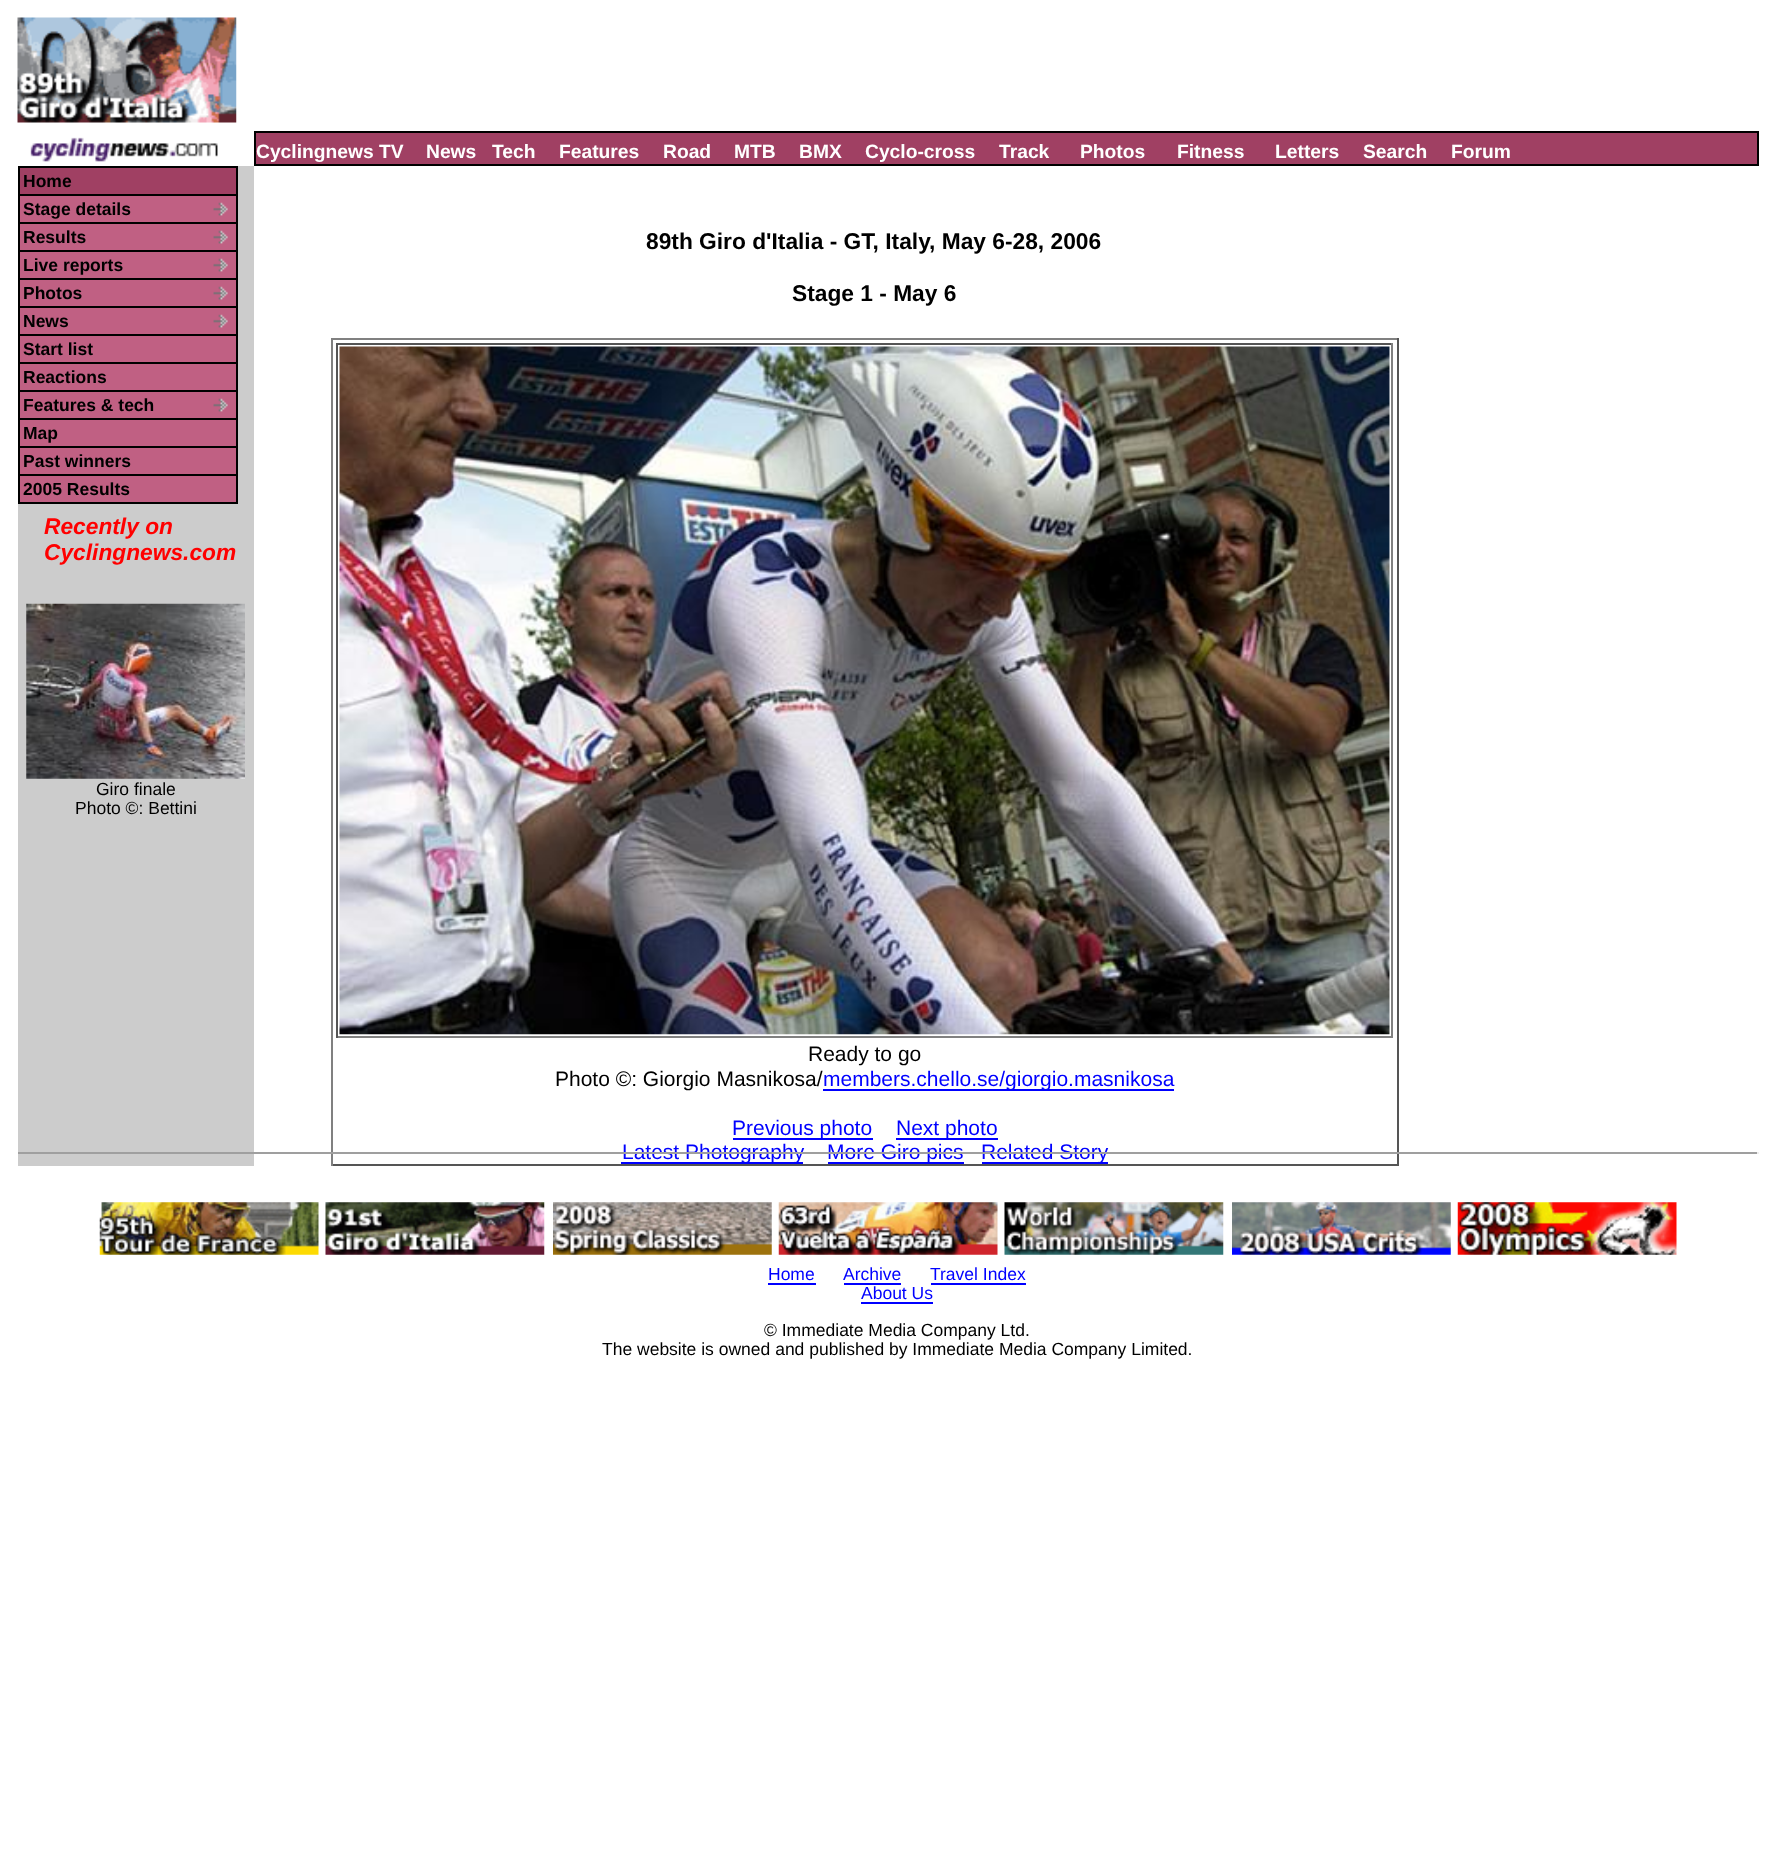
<svg xmlns="http://www.w3.org/2000/svg" width="1766" height="1871" viewBox="0 0 1766 1871">
  <rect width="100%" height="100%" fill="#fff"/>
  <image x="17" y="17" width="220" height="106" href="img/1.png"/>
  <image x="30" y="137" width="188" height="25" href="img/2.png"/>
  <path d="M255 132h1503v33H255z" fill="#a04063" stroke="#000" stroke-width="2"/>
  <path d="M18 166h236v1000H18z" fill="#ccc"/>
  <path d="M236 166h2v338H236z" fill="#000"/>
  <path d="M18 502h220v2H18z" fill="#000"/>
  <path d="M20 168h216v26H20z" fill="#a04063"/>
  <path d="M18 166h218v2H18z" fill="#000"/>
  <path d="M18 166h2v28H18z" fill="#000"/>
  <path d="M20 196h216v26H20z" fill="#c06083"/>
  <image x="213" y="202" width="15" height="14" href="img/3.png"/>
  <path d="M18 194h218v2H18z" fill="#000"/>
  <path d="M18 194h2v28H18z" fill="#000"/>
  <path d="M20 224h216v26H20z" fill="#c06083"/>
  <image x="213" y="230" width="15" height="14" href="img/3.png"/>
  <path d="M18 222h218v2H18z" fill="#000"/>
  <path d="M18 222h2v28H18z" fill="#000"/>
  <path d="M20 252h216v26H20z" fill="#c06083"/>
  <image x="213" y="258" width="15" height="14" href="img/3.png"/>
  <path d="M18 250h218v2H18z" fill="#000"/>
  <path d="M18 250h2v28H18z" fill="#000"/>
  <path d="M20 280h216v26H20z" fill="#c06083"/>
  <image x="213" y="286" width="15" height="14" href="img/3.png"/>
  <path d="M18 278h218v2H18z" fill="#000"/>
  <path d="M18 278h2v28H18z" fill="#000"/>
  <path d="M20 308h216v26H20z" fill="#c06083"/>
  <image x="213" y="314" width="15" height="14" href="img/3.png"/>
  <path d="M18 306h218v2H18z" fill="#000"/>
  <path d="M18 306h2v28H18z" fill="#000"/>
  <path d="M20 336h216v26H20z" fill="#c06083"/>
  <path d="M18 334h218v2H18z" fill="#000"/>
  <path d="M18 334h2v28H18z" fill="#000"/>
  <path d="M20 364h216v26H20z" fill="#c06083"/>
  <path d="M18 362h218v2H18z" fill="#000"/>
  <path d="M18 362h2v28H18z" fill="#000"/>
  <path d="M20 392h216v26H20z" fill="#c06083"/>
  <image x="213" y="398" width="15" height="14" href="img/3.png"/>
  <path d="M18 390h218v2H18z" fill="#000"/>
  <path d="M18 390h2v28H18z" fill="#000"/>
  <path d="M20 420h216v26H20z" fill="#c06083"/>
  <path d="M18 418h218v2H18z" fill="#000"/>
  <path d="M18 418h2v28H18z" fill="#000"/>
  <path d="M20 448h216v26H20z" fill="#c06083"/>
  <path d="M18 446h218v2H18z" fill="#000"/>
  <path d="M18 446h2v28H18z" fill="#000"/>
  <path d="M20 476h216v26H20z" fill="#c06083"/>
  <path d="M18 474h218v2H18z" fill="#000"/>
  <path d="M18 474h2v28H18z" fill="#000"/>
  <image x="26" y="603" width="219" height="176" href="img/4.png"/>
  <path d="M331 338h1067v2H331z" fill="#808080"/>
  <path d="M1397 338h2v828H1397z" fill="#555"/>
  <path d="M331 1164h1067v2H331z" fill="#555"/>
  <path d="M331 338h2v828H331z" fill="#808080"/>
  <path d="M336 343h1057v2H336z" fill="#555"/>
  <path d="M1391 343h2v695H1391z" fill="#808080"/>
  <path d="M336 1036h1057v2H336z" fill="#808080"/>
  <path d="M336 343h2v695H336z" fill="#555"/>
  <image x="339" y="346" width="1051" height="689" href="img/5.png"/>
  <path d="M733 1138h140v2H733z" fill="#00f"/>
  <path d="M896 1138h102v2H896z" fill="#00f"/>
  <path d="M621 1162h182v2H621z" fill="#00f"/>
  <path d="M828 1162h136v2H828z" fill="#00f"/>
  <path d="M982 1162h126v2H982z" fill="#00f"/>
  <image x="99" y="1202" width="220" height="53" href="img/6.png"/>
  <image x="325" y="1202" width="220" height="53" href="img/7.png"/>
  <image x="553" y="1202" width="219" height="53" href="img/8.png"/>
  <image x="778" y="1202" width="220" height="53" href="img/9.png"/>
  <image x="1004" y="1202" width="220" height="53" href="img/10.png"/>
  <image x="1232" y="1202" width="219" height="53" href="img/11.png"/>
  <image x="1457" y="1202" width="220" height="53" href="img/12.png"/>
  <path d="M768 1283h48v2H768z" fill="#00f"/>
  <path d="M844 1283h57v2H844z" fill="#00f"/>
  <path d="M931 1283h95v2H931z" fill="#00f"/>
  <path d="M861 1302h72v2H861z" fill="#00f"/>
  <g font-family="Liberation Sans" font-size="19.25" font-weight="bold" fill="#fff">
    <text x="256" y="158">Cyclingnews TV</text>
    <text x="426" y="158">News</text>
    <text x="492" y="158">Tech</text>
    <text x="559" y="158">Features</text>
    <text x="663" y="158">Road</text>
    <text x="734" y="158">MTB</text>
    <text x="799" y="158">BMX</text>
    <text x="865" y="158">Cyclo-cross</text>
    <text x="999" y="158">Track</text>
    <text x="1080" y="158">Photos</text>
    <text x="1177" y="158">Fitness</text>
    <text x="1275" y="158">Letters</text>
    <text x="1363" y="158">Search</text>
    <text x="1451" y="158">Forum</text>
  </g>
  <g font-family="Liberation Sans" font-size="17.5" font-weight="bold" fill="#000">
    <text x="23" y="187">Home</text>
    <text x="23" y="215">Stage details</text>
    <text x="23" y="243">Results</text>
    <text x="23" y="271">Live reports</text>
    <text x="23" y="299">Photos</text>
    <text x="23" y="327">News</text>
    <text x="23" y="355">Start list</text>
    <text x="23" y="383">Reactions</text>
    <text x="23" y="411">Features &amp; tech</text>
    <text x="23" y="439">Map</text>
    <text x="23" y="467">Past winners</text>
    <text x="23" y="495">2005 Results</text>
  </g>
  <g font-family="Liberation Sans" font-size="22.75" font-weight="bold" font-style="italic" fill="#f00">
    <text x="44" y="534">Recently on</text>
    <text x="44" y="560">Cyclingnews.com</text>
  </g>
  <g font-family="Liberation Sans" font-size="17.5" fill="#000">
    <text x="96" y="795">Giro finale</text>
    <text x="75" y="814">Photo ©: Bettini</text>
  </g>
  <g font-family="Liberation Sans" font-size="22.75" font-weight="bold" fill="#000">
    <text x="646" y="249">89th Giro d'Italia - GT, Italy, May 6-28, 2006</text>
    <text x="792" y="301">Stage 1 - May 6</text>
  </g>
  <g font-family="Liberation Sans" font-size="21" fill="#000">
    <text x="808" y="1061">Ready to go</text>
    <text x="555" y="1086">Photo ©: Giorgio Masnikosa/</text>
  </g>
  <path d="M823 1089h351v2H823z" fill="#00f"/>
  <g font-family="Liberation Sans" font-size="21" fill="#00f">
    <text x="823" y="1086">members.chello.se/giorgio.masnikosa</text>
    <text x="732" y="1135">Previous photo</text>
    <text x="896" y="1135">Next photo</text>
    <text x="622" y="1159">Latest Photography</text>
    <text x="827" y="1159">More Giro pics</text>
    <text x="981" y="1159">Related Story</text>
  </g>
  <path d="M18 1152h1741v2H18z" fill="#9f9f9f"/>
  <path d="M1757 1152h2v2H1757z" fill="#eee"/>
  <g font-family="Liberation Sans" font-size="17.5" fill="#00f">
    <text x="768" y="1280">Home</text>
    <text x="843" y="1280">Archive</text>
    <text x="930" y="1280">Travel Index</text>
    <text x="861" y="1299">About Us</text>
  </g>
  <g font-family="Liberation Sans" font-size="17.5" fill="#000">
    <text x="764" y="1336">© Immediate Media Company Ltd.</text>
    <text x="602" y="1355">The website is owned and published by Immediate Media Company Limited.</text>
  </g>
</svg>
